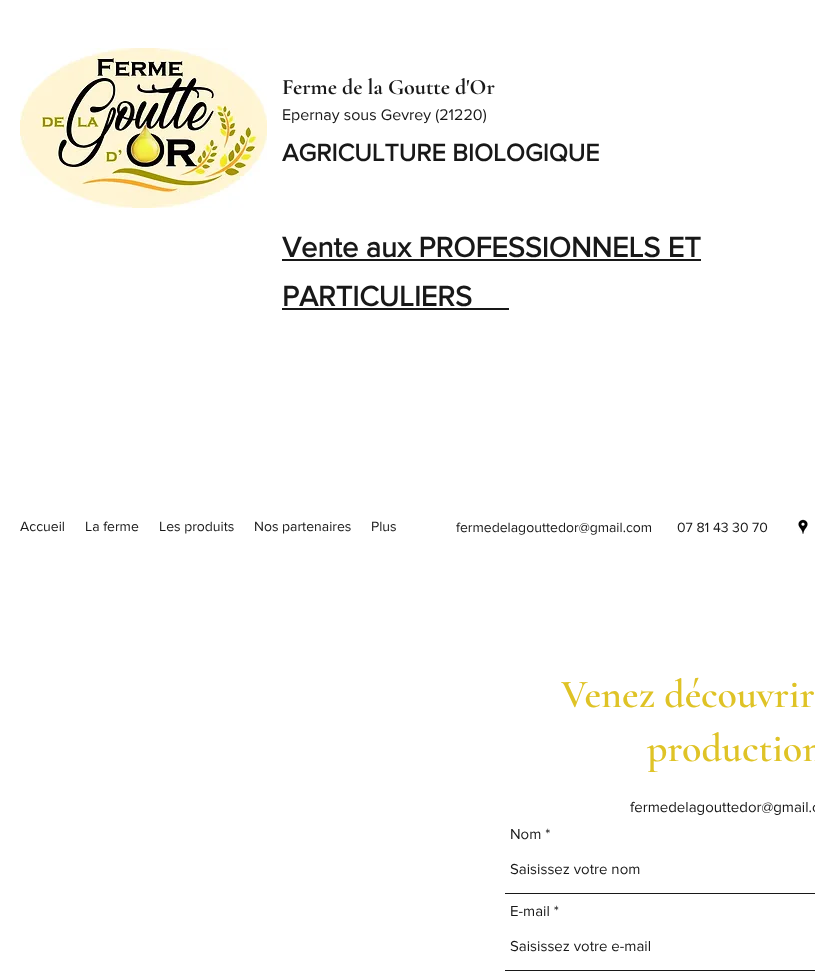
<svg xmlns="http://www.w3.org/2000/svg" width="815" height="976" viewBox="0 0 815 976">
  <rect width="100%" height="100%" fill="#fff"/>
  <image x="20" y="48" width="247" height="160" href="img/1.png"/>
  <path d="M282 259h419v2H282z" fill="#181818"/>
  <path d="M282 308h227v2H282z" fill="#181818"/>
  <image x="798" y="519" width="10" height="15" href="img/2.png"/>
  <path d="M505 893h310v1H505z" fill="#181818"/>
  <path d="M505 970h310v1H505z" fill="#181818"/>
  <text x="282" y="94" font-family="Cormorant Garamond" font-size="22" font-weight="bold" fill="#181818">Ferme de la Goutte d'Or</text>
  <text x="282" y="120" font-family="'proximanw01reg'" font-size="16" fill="#181818">Epernay sous Gevrey (21220)</text>
  <text x="282" y="161" font-family="'proximanw01reg'" font-size="25" font-weight="bold" fill="#181818">AGRICULTURE BIOLOGIQUE</text>
  <g font-family="'proximanw01reg'" font-size="29" font-weight="bold" fill="#181818">
    <text x="282" y="257">Vente aux PROFESSIONNELS ET</text>
    <text x="282" y="306">PARTICULIERS</text>
  </g>
  <g font-family="'proximanw01reg'" font-size="14" fill="#181818">
    <text x="20" y="531">Accueil</text>
    <text x="85" y="531">La ferme</text>
    <text x="159" y="531">Les produits</text>
    <text x="254" y="531">Nos partenaires</text>
    <text x="371" y="531">Plus</text>
    <text x="456" y="532">fermedelagouttedor@gmail.com</text>
    <text x="677" y="532">07 81 43 30 70</text>
  </g>
  <g font-family="Cormorant Garamond" font-size="40" font-weight="600" fill="#dfc326">
    <text x="561" y="707">Venez découvrir</text>
    <text x="647" y="761">production</text>
  </g>
  <g font-family="'proximanw01reg'" font-size="15" fill="#181818">
    <text x="630" y="812">fermedelagouttedor@gmail.c</text>
    <text x="510" y="839">Nom *</text>
    <text x="510" y="874">Saisissez votre nom</text>
    <text x="510" y="916">E-mail *</text>
    <text x="510" y="951">Saisissez votre e-mail</text>
  </g>
</svg>
